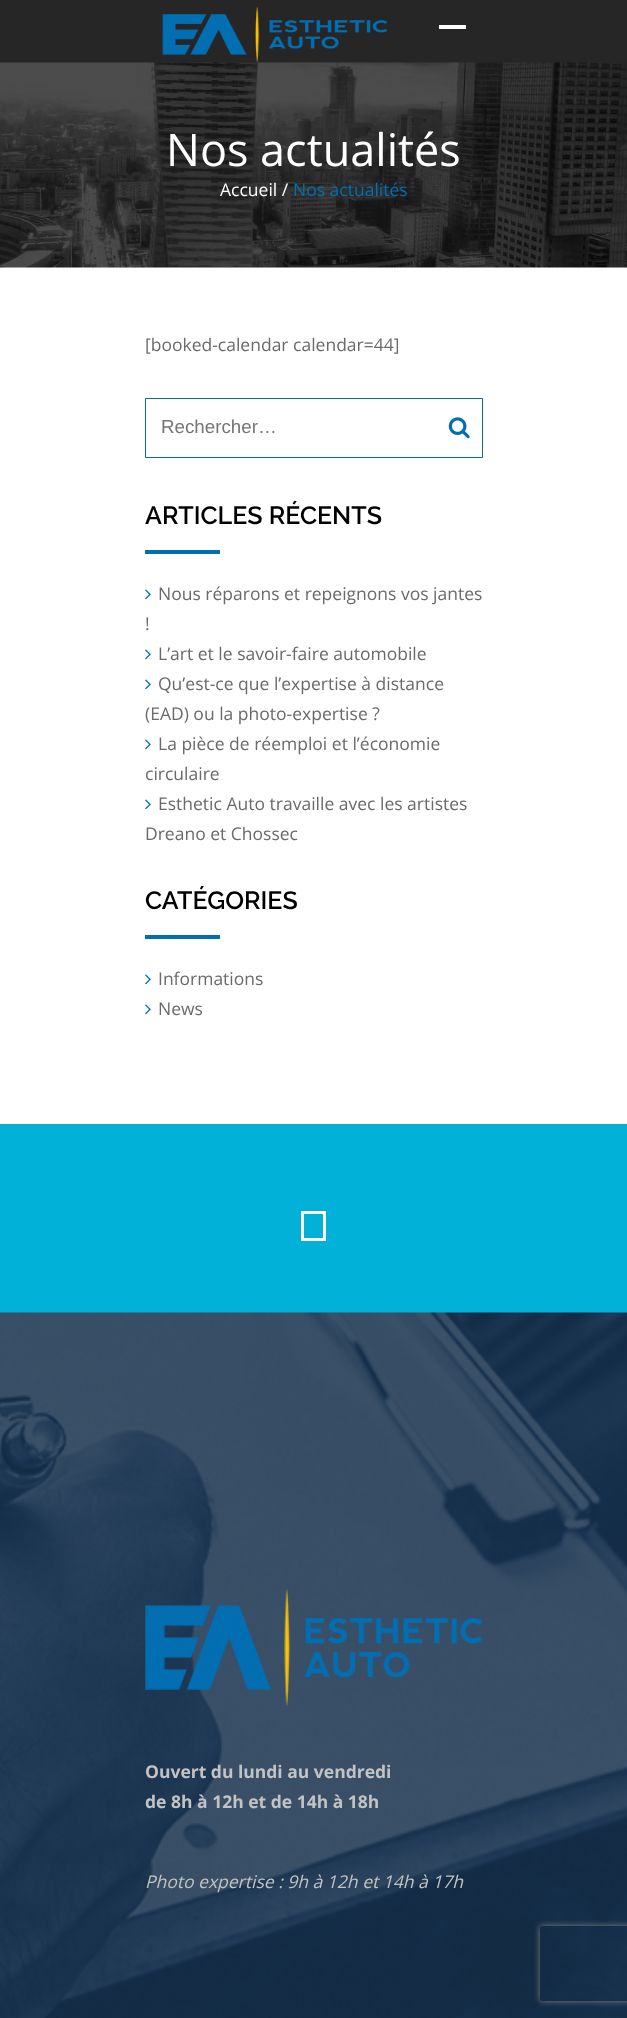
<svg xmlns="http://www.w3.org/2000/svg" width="627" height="2018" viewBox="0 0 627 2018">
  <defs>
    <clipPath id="clip1"><path d="M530 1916H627V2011H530ZM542.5 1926H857.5C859 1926 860 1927 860 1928.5V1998.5C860 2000 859 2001 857.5 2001H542.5C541 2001 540 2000 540 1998.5V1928.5C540 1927 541 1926 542.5 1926Z" clip-rule="evenodd"/></clipPath>
  </defs>
  <rect width="100%" height="100%" fill="#fff"/>
  <path d="M0 0h627v63H0z" fill="#262626"/>
  <image x="0" y="62" width="627" height="206" href="img/2.png"/>
  <image x="162" y="6" width="226" height="57" href="img/1.png"/>
  <path d="M439 25h27v4H439z" fill="#fff"/>
  <path d="M145.5 398.5h337v59H145.5z" fill="none" stroke="#0a6f85"/>
  <image x="448" y="417" width="22" height="22" href="img/3.png"/>
  <path d="M145 550h75v4H145z" fill="#036fb2"/>
  <image x="145" y="589" width="6" height="11" href="img/4.png"/>
  <image x="145" y="649" width="6" height="11" href="img/4.png"/>
  <image x="145" y="679" width="6" height="11" href="img/4.png"/>
  <image x="145" y="739" width="6" height="11" href="img/4.png"/>
  <image x="145" y="799" width="6" height="11" href="img/4.png"/>
  <path d="M145 935h75v4H145z" fill="#036fb2"/>
  <image x="145" y="974" width="6" height="11" href="img/4.png"/>
  <image x="145" y="1004" width="6" height="11" href="img/4.png"/>
  <path d="M0 1124h627v189H0z" fill="#01b1d7"/>
  <path d="M302.5 1212.5h22v27H302.5z" fill="none" stroke="#fff" stroke-width="3"/>
  <image x="0" y="1312" width="627" height="706" href="img/5.png"/>
  <image x="145" y="1589" width="338" height="117" href="img/6.png"/>
  <g clip-path="url(#clip1)">
    <rect x="540" y="1926" width="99" height="75" rx="2.5" fill="#808080" filter="blur(3px)"/>
  </g>
  <text x="166" y="166" font-family="Open Sans" font-size="45" fill="#fff">Nos actualités</text>
  <text x="220" y="196" font-family="Open Sans" font-size="17.5" fill="#fff">Accueil /</text>
  <text x="293" y="196" font-family="Open Sans" font-size="17.5" fill="#036fb2">Nos actualités</text>
  <text x="145" y="351" font-family="Open Sans" font-size="17.5" fill="#6a6a6a">[booked-calendar calendar=44]</text>
  <text x="161" y="433" font-family="Liberation Sans" font-size="18.75" fill="#757575">Rechercher…</text>
  <text x="145" y="524" font-family="Raleway" font-size="25" font-weight="600" fill="#000">ARTICLES RÉCENTS</text>
  <g font-family="Open Sans" font-size="17.5" fill="#6a6a6a">
    <text x="158" y="600">Nous réparons et repeignons vos jantes</text>
    <text x="145" y="630">!</text>
    <text x="158" y="660">L’art et le savoir-faire automobile</text>
    <text x="158" y="690">Qu’est-ce que l’expertise à distance</text>
    <text x="145" y="720">(EAD) ou la photo-expertise ?</text>
    <text x="158" y="750">La pièce de réemploi et l’économie</text>
    <text x="145" y="780">circulaire</text>
    <text x="158" y="810">Esthetic Auto travaille avec les artistes</text>
    <text x="145" y="840">Dreano et Chossec</text>
  </g>
  <text x="145" y="909" font-family="Raleway" font-size="25" font-weight="600" fill="#000">CATÉGORIES</text>
  <g font-family="Open Sans" font-size="17.5" fill="#6a6a6a">
    <text x="158" y="985">Informations</text>
    <text x="158" y="1015">News</text>
  </g>
  <g font-family="Open Sans" font-size="17.5" font-weight="bold" fill="#c3c3c3">
    <text x="145" y="1778">Ouvert du lundi au vendredi</text>
    <text x="145" y="1808">de 8h à 12h et de 14h à 18h</text>
  </g>
  <text x="145" y="1888" font-family="Open Sans" font-size="17.5" font-style="italic" fill="#c3c3c3">Photo expertise : 9h à 12h et 14h à 17h</text>
</svg>
